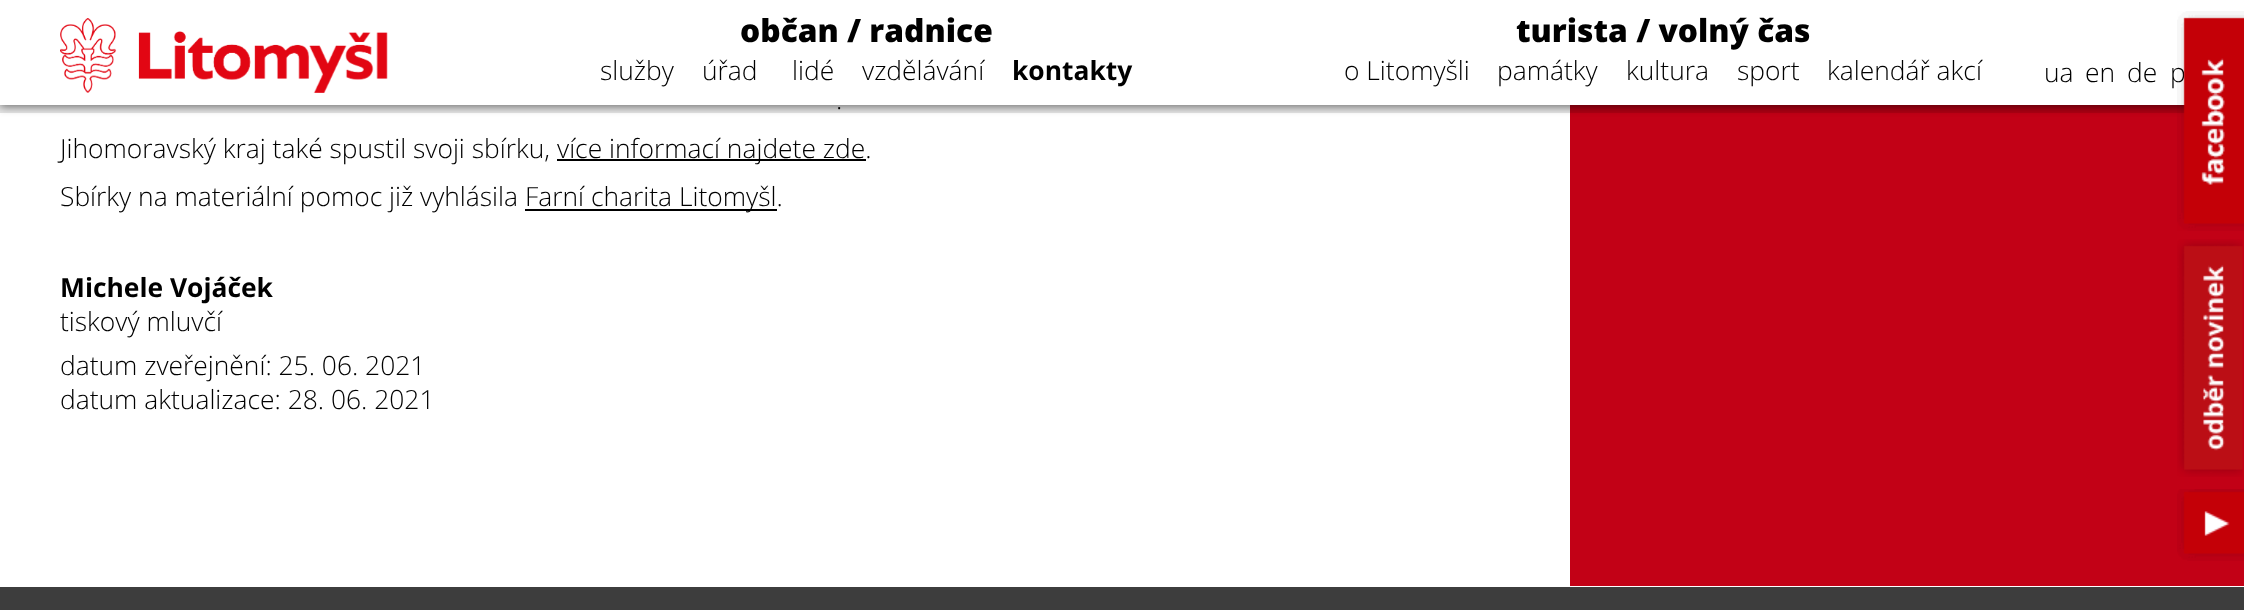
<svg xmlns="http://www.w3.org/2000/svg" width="2244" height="610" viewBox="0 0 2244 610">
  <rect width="100%" height="100%" fill="#fff"/>
  <path d="M1570 105h674v481H1570z" fill="#c20116"/>
  <path d="M0 2h2244v105H0z" fill="#00000080" filter="blur(4px)"/>
  <path d="M557 159h309v2H557z" fill="#000"/>
  <path d="M525 209h252v2H525z" fill="#000"/>
  <image x="2177" y="239" width="66" height="238" href="img/3.png"/>
  <image x="2177" y="489" width="67" height="72" href="img/4.png"/>
  <path d="M0 587h2244v23H0z" fill="#3d3d3d"/>
  <text x="836" y="109" font-family="Open Sans" font-size="26.4" font-weight="300" fill="#000">.</text>
  <path d="M-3 -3h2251v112H-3z" fill="none" stroke="#0000001a" stroke-width="8"/>
  <path d="M0 0h2244v105H0z" fill="#fff"/>
  <text x="2170" y="82" font-family="Open Sans" font-size="26.4" font-weight="300" fill="#000">p</text>
  <image x="2177" y="11" width="67" height="220" href="img/2.png"/>
  <g font-family="Open Sans" font-size="26.4" font-weight="300" fill="#000">
    <text x="2044" y="82">ua</text>
    <text x="2085" y="82">en</text>
    <text x="2127" y="82">de</text>
  </g>
  <g font-family="Open Sans" font-size="31.75" font-weight="800" fill="#000">
    <text x="1516" y="42">turista / volný čas</text>
    <text x="740" y="42">občan / radnice</text>
  </g>
  <g font-family="Open Sans" font-size="26.4" font-weight="300" fill="#000">
    <text x="1827" y="80">kalendář akcí</text>
    <text x="1737" y="80">sport</text>
    <text x="1626" y="80">kultura</text>
    <text x="1497" y="80">památky</text>
    <text x="1344" y="80">o Litomyšli</text>
  </g>
  <text x="1012" y="80" font-family="Open Sans" font-size="26.4" font-weight="bold" fill="#000">kontakty</text>
  <g font-family="Open Sans" font-size="26.4" font-weight="300" fill="#000">
    <text x="862" y="80">vzdělávání</text>
    <text x="792" y="80">lidé</text>
    <text x="702" y="80">úřad</text>
    <text x="600" y="80">služby</text>
  </g>
  <image x="60" y="18" width="328" height="75" href="img/1.png"/>
  <g font-family="Open Sans" font-size="26.4" font-weight="300" fill="#000">
    <text x="60" y="158">Jihomoravský kraj také spustil svoji sbírku,</text>
    <text x="557" y="158">více informací najdete zde.</text>
    <text x="60" y="206">Sbírky na materiální pomoc již vyhlásila</text>
    <text x="525" y="206">Farní charita Litomyšl.</text>
  </g>
  <text x="60" y="297" font-family="Open Sans" font-size="26.4" font-weight="bold" fill="#000">Michele Vojáček</text>
  <g font-family="Open Sans" font-size="26.4" font-weight="300" fill="#000">
    <text x="60" y="331">tiskový mluvčí</text>
    <text x="60" y="375">datum zveřejnění: 25. 06. 2021</text>
    <text x="60" y="409">datum aktualizace: 28. 06. 2021</text>
  </g>
</svg>
